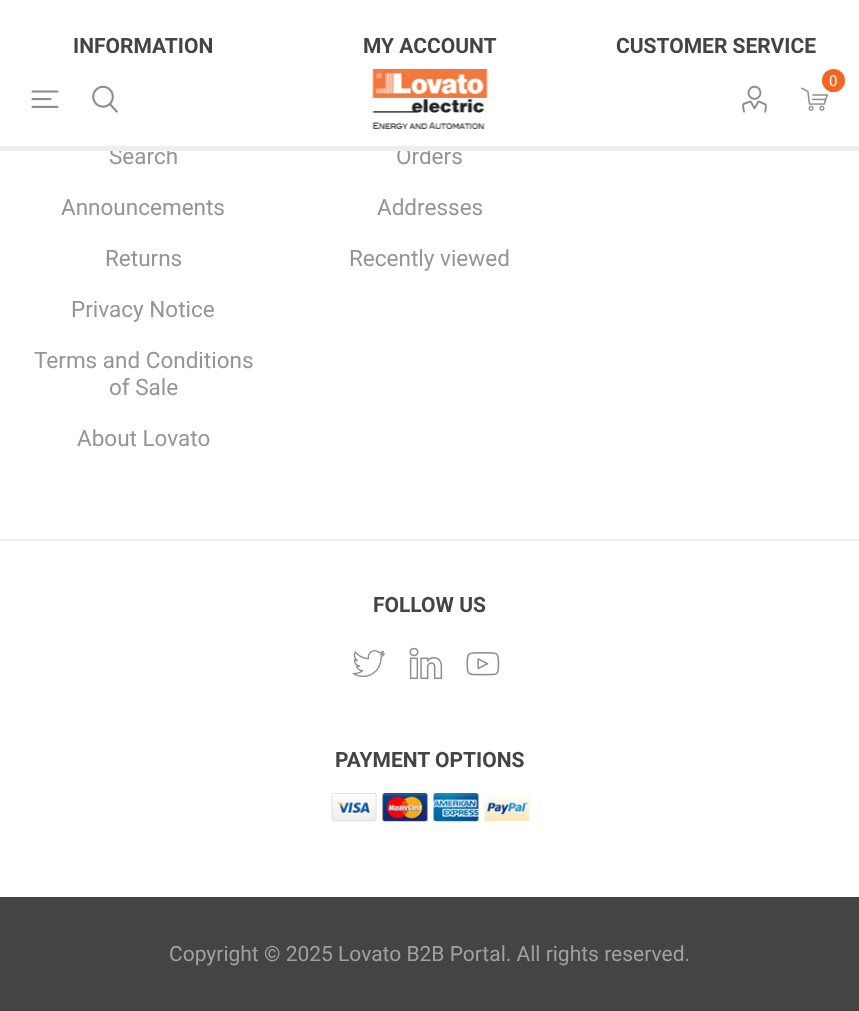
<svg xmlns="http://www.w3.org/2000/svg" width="859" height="1011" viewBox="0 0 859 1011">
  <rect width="100%" height="100%" fill="#fff"/>
  <path d="M0 539h859v2H0z" fill="#eee"/>
  <image x="352" y="650" width="33" height="27" href="img/1.png"/>
  <image x="409" y="647" width="34" height="33" href="img/2.png"/>
  <image x="466" y="652" width="34" height="24" href="img/3.png"/>
  <image x="331" y="793" width="46" height="29" href="img/4.png"/>
  <image x="382" y="793" width="46" height="29" href="img/5.png"/>
  <image x="433" y="793" width="46" height="29" href="img/6.png"/>
  <image x="484" y="793" width="46" height="29" href="img/7.png"/>
  <path d="M0 897h859v114H0z" fill="#444"/>
  <image x="372" y="69" width="116" height="60" href="img/8.png"/>
  <image x="801" y="87" width="27" height="24" href="img/9.png"/>
  <circle cx="833.5" cy="80.5" r="11.5" fill="#f26522"/>
  <image x="31" y="90" width="28" height="18" href="img/10.png"/>
  <image x="92" y="85" width="26" height="28" href="img/11.png"/>
  <image x="742" y="85" width="25" height="28" href="img/12.png"/>
  <text x="73" y="53" font-family="Roboto" font-size="21" font-weight="bold" fill="#444">INFORMATION</text>
  <g font-family="Roboto" font-size="22.5" fill="#959595">
    <text x="109" y="164">Search</text>
    <text x="61" y="215">Announcements</text>
    <text x="105" y="266">Returns</text>
    <text x="71" y="317">Privacy Notice</text>
    <text x="34" y="368">Terms and Conditions</text>
    <text x="109" y="395">of Sale</text>
    <text x="77" y="446">About Lovato</text>
  </g>
  <text x="363" y="53" font-family="Roboto" font-size="21" font-weight="bold" fill="#444">MY ACCOUNT</text>
  <g font-family="Roboto" font-size="22.5" fill="#959595">
    <text x="396" y="164">Orders</text>
    <text x="377" y="215">Addresses</text>
    <text x="349" y="266">Recently viewed</text>
  </g>
  <g font-family="Roboto" font-size="21" font-weight="bold" fill="#444">
    <text x="616" y="53">CUSTOMER SERVICE</text>
    <text x="373" y="612">FOLLOW US</text>
    <text x="335" y="767">PAYMENT OPTIONS</text>
  </g>
  <text x="169" y="961" font-family="Roboto" font-size="21" fill="#a0a0a0">Copyright © 2025 Lovato B2B Portal. All rights reserved.</text>
  <path d="M111 53h689v1H111z" fill="#fff"/>
  <path d="M0 146h859v5H0z" fill="#eee"/>
  <text x="829" y="86" font-family="Roboto" font-size="15" fill="#fff">0</text>
</svg>
